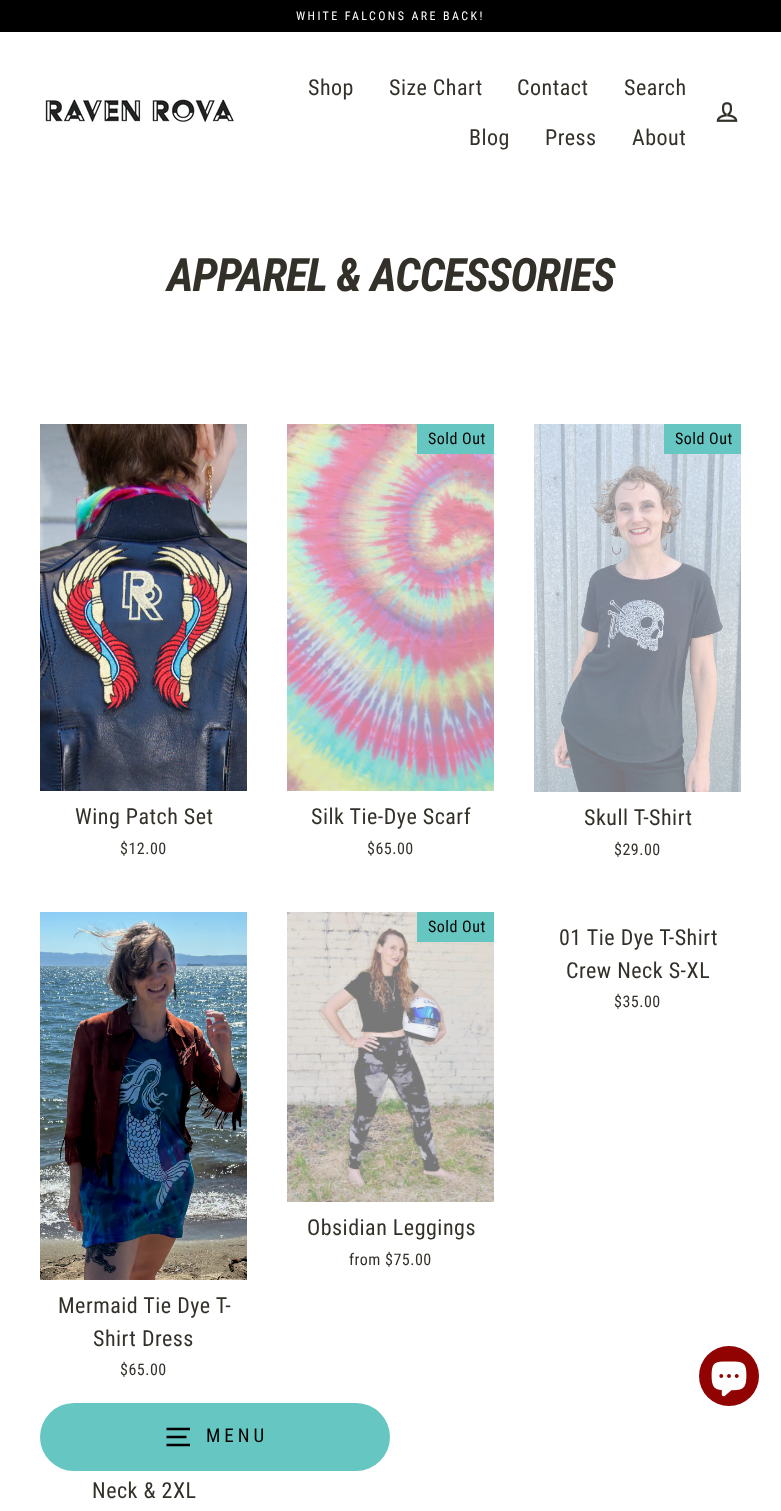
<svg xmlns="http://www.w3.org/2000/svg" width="781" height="1511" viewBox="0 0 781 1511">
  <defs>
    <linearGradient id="g1" gradientUnits="userSpaceOnUse" x1="268" y1="531" x2="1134" y2="684"><stop offset="0.4" stop-color="#f0f0f0"/><stop offset="0.63" stop-color="#e8e8e8"/><stop offset="0.79" stop-color="#f0f0f0"/></linearGradient>
    <linearGradient id="g2" gradientUnits="userSpaceOnUse" x1="515" y1="532" x2="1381" y2="684"><stop offset="0.4" stop-color="#f0f0f0"/><stop offset="0.63" stop-color="#e8e8e8"/><stop offset="0.79" stop-color="#f0f0f0"/></linearGradient>
    <linearGradient id="g3" gradientUnits="userSpaceOnUse" x1="275" y1="982" x2="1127" y2="1132"><stop offset="0.4" stop-color="#f0f0f0"/><stop offset="0.63" stop-color="#e8e8e8"/><stop offset="0.79" stop-color="#f0f0f0"/></linearGradient>
  </defs>
  <rect width="100%" height="100%" fill="#fff"/>
  <path d="M0 0h781v32H0z" fill="#000"/>
  <image x="45" y="96" width="189" height="28" href="img/1.png"/>
  <image x="716" y="102" width="22" height="20" href="img/2.png"/>
  <rect x="40" y="1403" width="350" height="68" rx="34" fill="#66c6c2"/>
  <path d="M166.5 1429H190M166.5 1437H186.5M166.5 1445H190" fill="none" stroke="#000" stroke-width="2.3"/>
  <image x="40" y="424" width="207" height="367" href="img/3.png"/>
  <path d="M287 424h207v367H287z" fill="url(#g1)"/>
  <image x="287" y="424" width="207" height="367" href="img/4.png"/>
  <path d="M417 424h77v30H417z" fill="#66c6c2"/>
  <path d="M534 424h207v368H534z" fill="url(#g2)"/>
  <image x="534" y="424" width="207" height="368" href="img/5.png"/>
  <path d="M664 424h77v30H664z" fill="#66c6c2"/>
  <path d="M287 912h207v290H287z" fill="url(#g3)"/>
  <image x="287" y="912" width="207" height="290" href="img/6.png"/>
  <path d="M417 912h77v30H417z" fill="#66c6c2"/>
  <image x="40" y="912" width="207" height="368" href="img/7.png"/>
  <circle cx="729" cy="1376" r="30" fill="#910202"/>
  <image x="711" y="1361" width="36" height="36" href="img/8.png"/>
  <text x="296" y="20" font-family="Roboto Condensed" font-size="12" letter-spacing="2.4" fill="#fff">WHITE FALCONS ARE BACK!</text>
  <g font-family="Roboto Condensed" font-size="22" letter-spacing="0.5" fill="#333029">
    <text x="308" y="95">Shop</text>
    <text x="389" y="95">Size Chart</text>
    <text x="517" y="95">Contact</text>
    <text x="624" y="95">Search</text>
    <text x="469" y="145">Blog</text>
    <text x="545" y="145">Press</text>
    <text x="632" y="145">About</text>
  </g>
  <text x="206" y="1442" font-family="Roboto Condensed" font-size="19" letter-spacing="4" fill="#000">MENU</text>
  <text x="167" y="291" font-family="Roboto Condensed" font-size="46" font-weight="bold" font-style="italic" letter-spacing="-1.15" fill="#333029">APPAREL &amp; ACCESSORIES</text>
  <text x="75" y="824" font-family="Roboto Condensed" font-size="22" letter-spacing="0.5" fill="#333029">Wing Patch Set</text>
  <text x="120" y="854" font-family="Roboto Condensed" font-size="16" letter-spacing="0.5" fill="#333029">$12.00</text>
  <text x="428" y="444" font-family="Roboto Condensed" font-size="16" letter-spacing="0.5" fill="#000">Sold Out</text>
  <text x="311" y="824" font-family="Roboto Condensed" font-size="22" letter-spacing="0.5" fill="#333029">Silk Tie-Dye Scarf</text>
  <text x="367" y="854" font-family="Roboto Condensed" font-size="16" letter-spacing="0.5" fill="#333029">$65.00</text>
  <text x="675" y="444" font-family="Roboto Condensed" font-size="16" letter-spacing="0.5" fill="#000">Sold Out</text>
  <text x="584" y="825" font-family="Roboto Condensed" font-size="22" letter-spacing="0.5" fill="#333029">Skull T-Shirt</text>
  <text x="614" y="855" font-family="Roboto Condensed" font-size="16" letter-spacing="0.5" fill="#333029">$29.00</text>
  <text x="428" y="932" font-family="Roboto Condensed" font-size="16" letter-spacing="0.5" fill="#000">Sold Out</text>
  <text x="307" y="1235" font-family="Roboto Condensed" font-size="22" letter-spacing="0.5" fill="#333029">Obsidian Leggings</text>
  <text x="349" y="1265" font-family="Roboto Condensed" font-size="16" letter-spacing="0.5" fill="#333029">from $75.00</text>
  <g font-family="Roboto Condensed" font-size="22" letter-spacing="0.5" fill="#333029">
    <text x="559" y="945">01 Tie Dye T-Shirt</text>
    <text x="566" y="978">Crew Neck S-XL</text>
  </g>
  <text x="614" y="1007" font-family="Roboto Condensed" font-size="16" letter-spacing="0.5" fill="#333029">$35.00</text>
  <g font-family="Roboto Condensed" font-size="22" letter-spacing="0.5" fill="#333029">
    <text x="58" y="1313">Mermaid Tie Dye T-</text>
    <text x="93" y="1346">Shirt Dress</text>
  </g>
  <text x="120" y="1375" font-family="Roboto Condensed" font-size="16" letter-spacing="0.5" fill="#333029">$65.00</text>
  <text x="92" y="1498" font-family="Roboto Condensed" font-size="22" letter-spacing="0.5" fill="#333029">Neck &amp; 2XL</text>
</svg>
